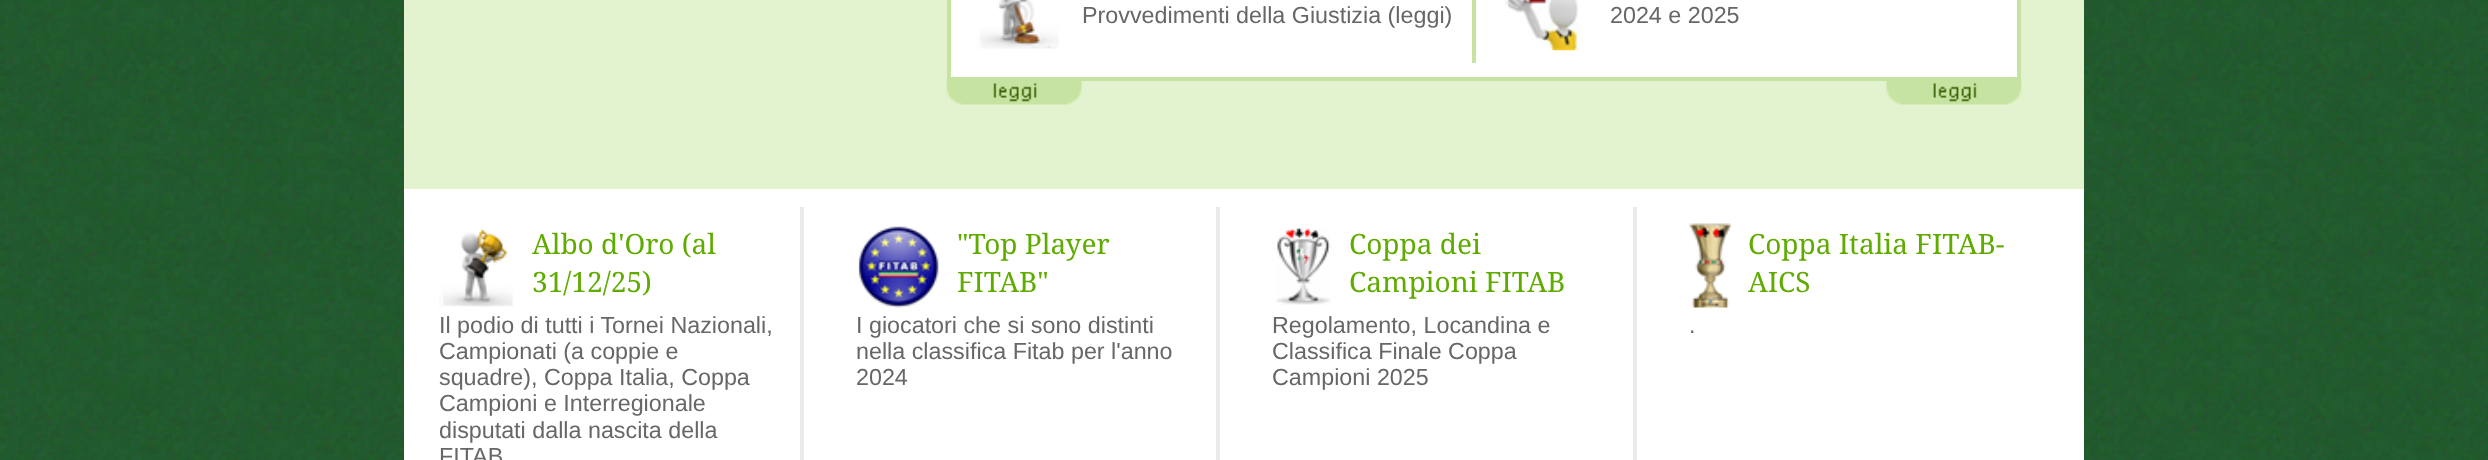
<svg xmlns="http://www.w3.org/2000/svg" width="2488" height="460" viewBox="0 0 2488 460">
  <rect width="100%" height="100%" fill="#fff"/>
  <image x="0" y="0" width="2488" height="460" href="img/1.png"/>
  <path d="M404 0h1680v189H404z" fill="#e3f3d0"/>
  <path d="M949 -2h1070v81H949z" fill="#fff" stroke="#c6e3a1" stroke-width="4"/>
  <path d="M1472 0h4v63H1472z" fill="#c6e3a1"/>
  <image x="977" y="0" width="82" height="49" href="img/2.png"/>
  <image x="1505" y="0" width="78" height="51" href="img/3.png"/>
  <image x="946" y="80" width="136" height="25" href="img/4.png"/>
  <image x="1886" y="80" width="136" height="25" href="img/5.png"/>
  <path d="M404 189h1680v271H404z" fill="#fff"/>
  <path d="M800 207h4v253H800z" fill="#eaeaea"/>
  <image x="439" y="228" width="74" height="79" href="img/6.png"/>
  <path d="M1216 207h4v253H1216z" fill="#eaeaea"/>
  <image x="858" y="226" width="81" height="82" href="img/7.png"/>
  <path d="M1633 207h4v253H1633z" fill="#eaeaea"/>
  <image x="1276" y="228" width="55" height="77" href="img/8.png"/>
  <image x="1688" y="223" width="43" height="85" href="img/9.png"/>
  <g font-family="Liberation Sans" font-size="23.3" fill="#676767">
    <text x="1082" y="23">Provvedimenti della Giustizia (leggi)</text>
    <text x="1610" y="23">2024 e 2025</text>
  </g>
  <g font-family="Noto Serif" font-size="28" fill="#5fab00">
    <text x="532" y="254">Albo d'Oro (al</text>
    <text x="532" y="292">31/12/25)</text>
  </g>
  <g font-family="Liberation Sans" font-size="23.3" fill="#676767">
    <text x="439" y="333">Il podio di tutti i Tornei Nazionali,</text>
    <text x="439" y="359">Campionati (a coppie e</text>
    <text x="439" y="385">squadre), Coppa Italia, Coppa</text>
    <text x="439" y="411">Campioni e Interregionale</text>
    <text x="439" y="438">disputati dalla nascita della</text>
    <text x="439" y="464">FITAB</text>
  </g>
  <g font-family="Noto Serif" font-size="28" fill="#5fab00">
    <text x="957" y="254">"Top Player</text>
    <text x="957" y="292">FITAB"</text>
  </g>
  <g font-family="Liberation Sans" font-size="23.3" fill="#676767">
    <text x="856" y="333">I giocatori che si sono distinti</text>
    <text x="856" y="359">nella classifica Fitab per l'anno</text>
    <text x="856" y="385">2024</text>
  </g>
  <g font-family="Noto Serif" font-size="28" fill="#5fab00">
    <text x="1349" y="254">Coppa dei</text>
    <text x="1349" y="292">Campioni FITAB</text>
  </g>
  <g font-family="Liberation Sans" font-size="23.3" fill="#676767">
    <text x="1272" y="333">Regolamento, Locandina e</text>
    <text x="1272" y="359">Classifica Finale Coppa</text>
    <text x="1272" y="385">Campioni 2025</text>
  </g>
  <g font-family="Noto Serif" font-size="28" fill="#5fab00">
    <text x="1748" y="254">Coppa Italia FITAB-</text>
    <text x="1748" y="292">AICS</text>
  </g>
  <text x="1689" y="333" font-family="Liberation Sans" font-size="23.3" fill="#676767">.</text>
</svg>
